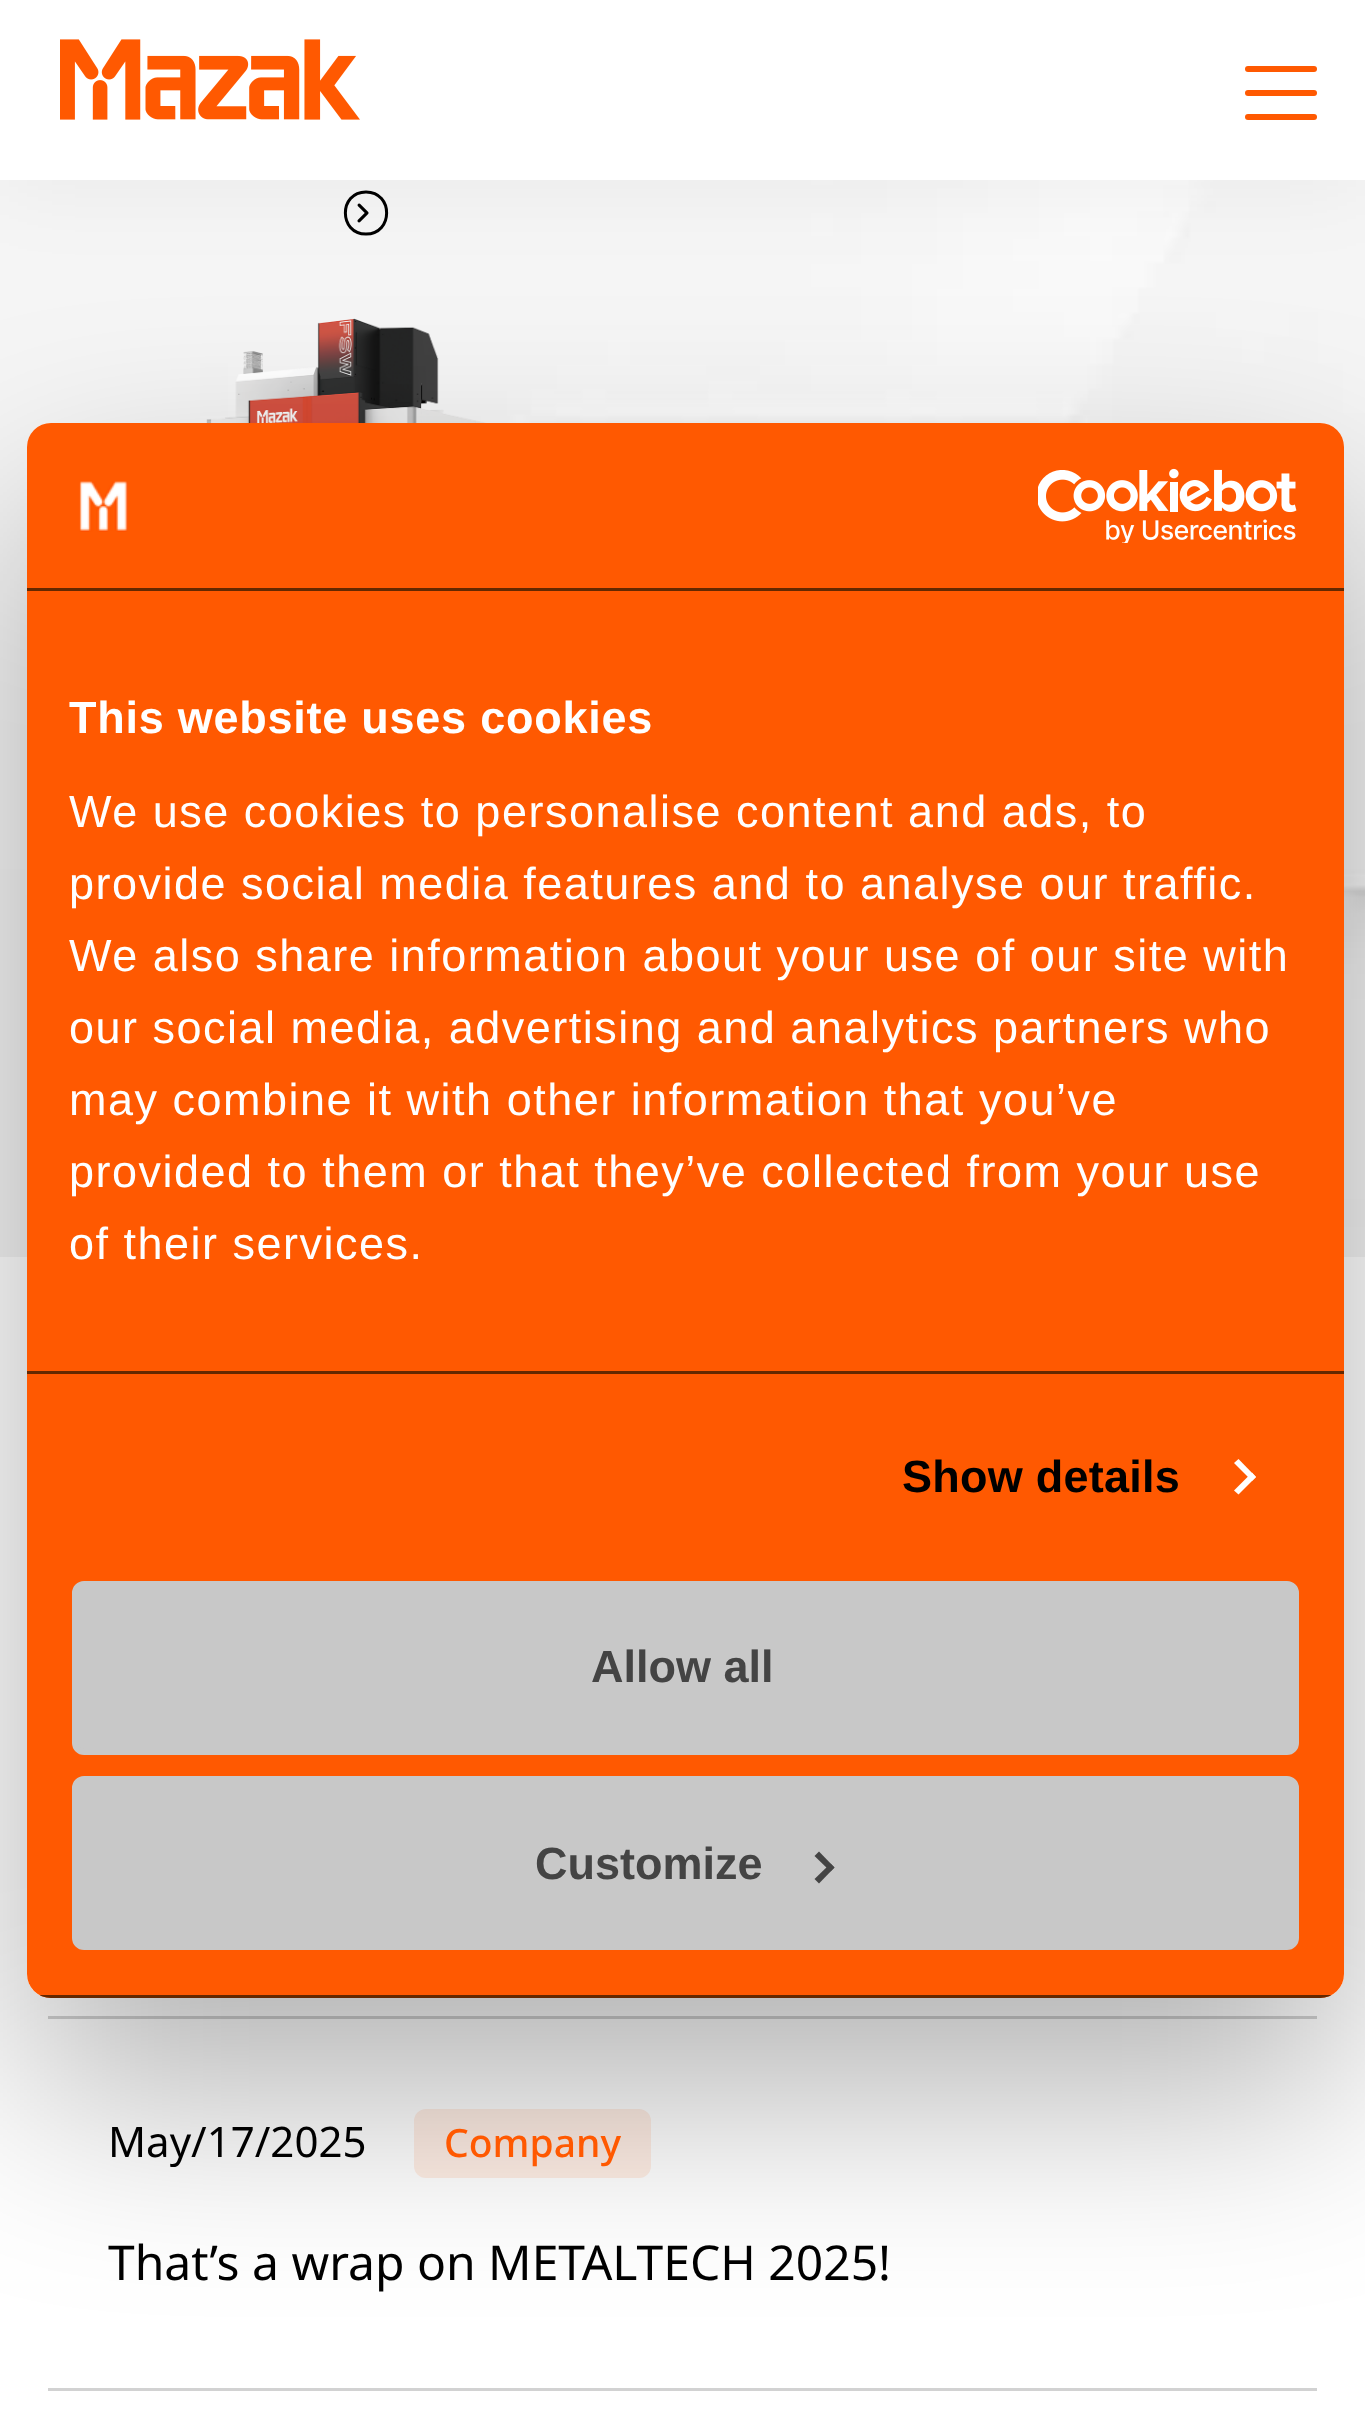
<svg xmlns="http://www.w3.org/2000/svg" width="1365" height="2421" viewBox="0 0 1365 2421">
  <defs>
    <clipPath id="clip1"><path d="M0 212H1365V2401H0ZM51 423H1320C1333.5 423 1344 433.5 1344 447V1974C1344 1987.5 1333.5 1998 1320 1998H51C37.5 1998 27 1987.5 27 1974V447C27 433.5 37.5 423 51 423Z" clip-rule="evenodd"/></clipPath>
    <clipPath id="clip2"><rect x="27" y="423" width="1317" height="1575" rx="24"/></clipPath>
  </defs>
  <rect width="100%" height="100%" fill="#fff"/>
  <image x="0" y="180" width="1365" height="1077" href="img/4.png"/>
  <path d="M366 192C393.5 192 393.5 234 366 234C338.5 234 338.5 192 366 192" fill="none" stroke="#000" stroke-width="3" stroke-linecap="round" stroke-linejoin="round"/>
  <image x="357" y="203" width="12" height="20" href="img/5.png"/>
  <image x="206" y="318" width="281" height="105" href="img/6.png"/>
  <path d="M48 2016h1269v3H48z" fill="#d2d2d2"/>
  <path d="M48 2388h1269v3H48z" fill="#d2d2d2"/>
  <rect x="414" y="2109" width="237" height="69" rx="12" fill="#ffeee5"/>
  <g clip-path="url(#clip1)">
    <rect x="27" y="519" width="1317" height="1575" rx="24" fill="#0000004d" filter="blur(102px)"/>
  </g>
  <rect x="27" y="423" width="1317" height="1575" rx="24" fill="#ff5901"/>
  <path d="M27 588h1317v3H27z" fill="#642800"/>
  <image x="79" y="481" width="49" height="51" href="img/1.png"/>
  <image x="1038" y="468" width="259" height="75" href="img/2.png"/>
  <path d="M27 1371h1317v3H27z" fill="#642800"/>
  <path d="M1238.5 1459L1256 1477L1252 1481L1234 1463Z" fill="#fff"/>
  <path d="M1252 1472.5L1256 1477L1238.5 1494.5L1234 1490.5Z" fill="#fff"/>
  <g clip-path="url(#clip2)">
    <path d="M39 1995h1293v3H39z" fill="#642800"/>
  </g>
  <rect x="75" y="1584" width="1221" height="168" rx="9" fill="#c8c8c8" stroke="#c8c8c8" stroke-width="6"/>
  <rect x="75" y="1779" width="1221" height="168" rx="9" fill="#c8c8c8" stroke="#c8c8c8" stroke-width="6"/>
  <path d="M819 1851.5L834.5 1867.5L830.5 1871.5L814.5 1856Z" fill="#444"/>
  <path d="M830.5 1863.5L834.5 1867.5L819 1883.5L814.5 1879Z" fill="#444"/>
  <path d="M0 0h1365v180H0z" fill="#0000000d" filter="blur(45px)"/>
  <path d="M0 0h1365v180H0z" fill="#fff"/>
  <image x="60" y="39" width="300" height="81" href="img/3.png"/>
  <rect x="1245" y="90" width="72" height="6" rx="3" fill="#ff5901"/>
  <rect x="1245" y="66" width="72" height="6" rx="3" fill="#ff5901"/>
  <rect x="1245" y="114" width="72" height="6" rx="3" fill="#ff5901"/>
  <text x="69" y="733" font-family="Liberation Sans" font-size="45" font-weight="bold" letter-spacing="0.75" fill="#fff">This website uses cookies</text>
  <g font-family="Liberation Sans" font-size="45" letter-spacing="1.5" fill="#fff">
    <text x="69" y="827">We use cookies to personalise content and ads, to</text>
    <text x="69" y="899">provide social media features and to analyse our traffic.</text>
    <text x="69" y="971">We also share information about your use of our site with</text>
    <text x="69" y="1043">our social media, advertising and analytics partners who</text>
    <text x="69" y="1115">may combine it with other information that you’ve</text>
    <text x="69" y="1187">provided to them or that they’ve collected from your use</text>
    <text x="69" y="1259">of their services.</text>
  </g>
  <text x="902" y="1492" font-family="Liberation Sans" font-size="45" font-weight="bold" letter-spacing="0.25" fill="#000">Show details</text>
  <g font-family="Liberation Sans" font-size="45" font-weight="bold" fill="#444">
    <text x="591" y="1682">Allow all</text>
    <text x="535" y="1879">Customize</text>
  </g>
  <text x="108" y="2157" font-family="Noto Sans" font-size="42" fill="#000">May/17/2025</text>
  <text x="444" y="2157" font-family="Noto Sans" font-size="39" font-weight="500" fill="#ff5901">Company</text>
  <text x="108" y="2280" font-family="Noto Sans" font-size="48" fill="#000">That’s a wrap on METALTECH 2025!</text>
</svg>
